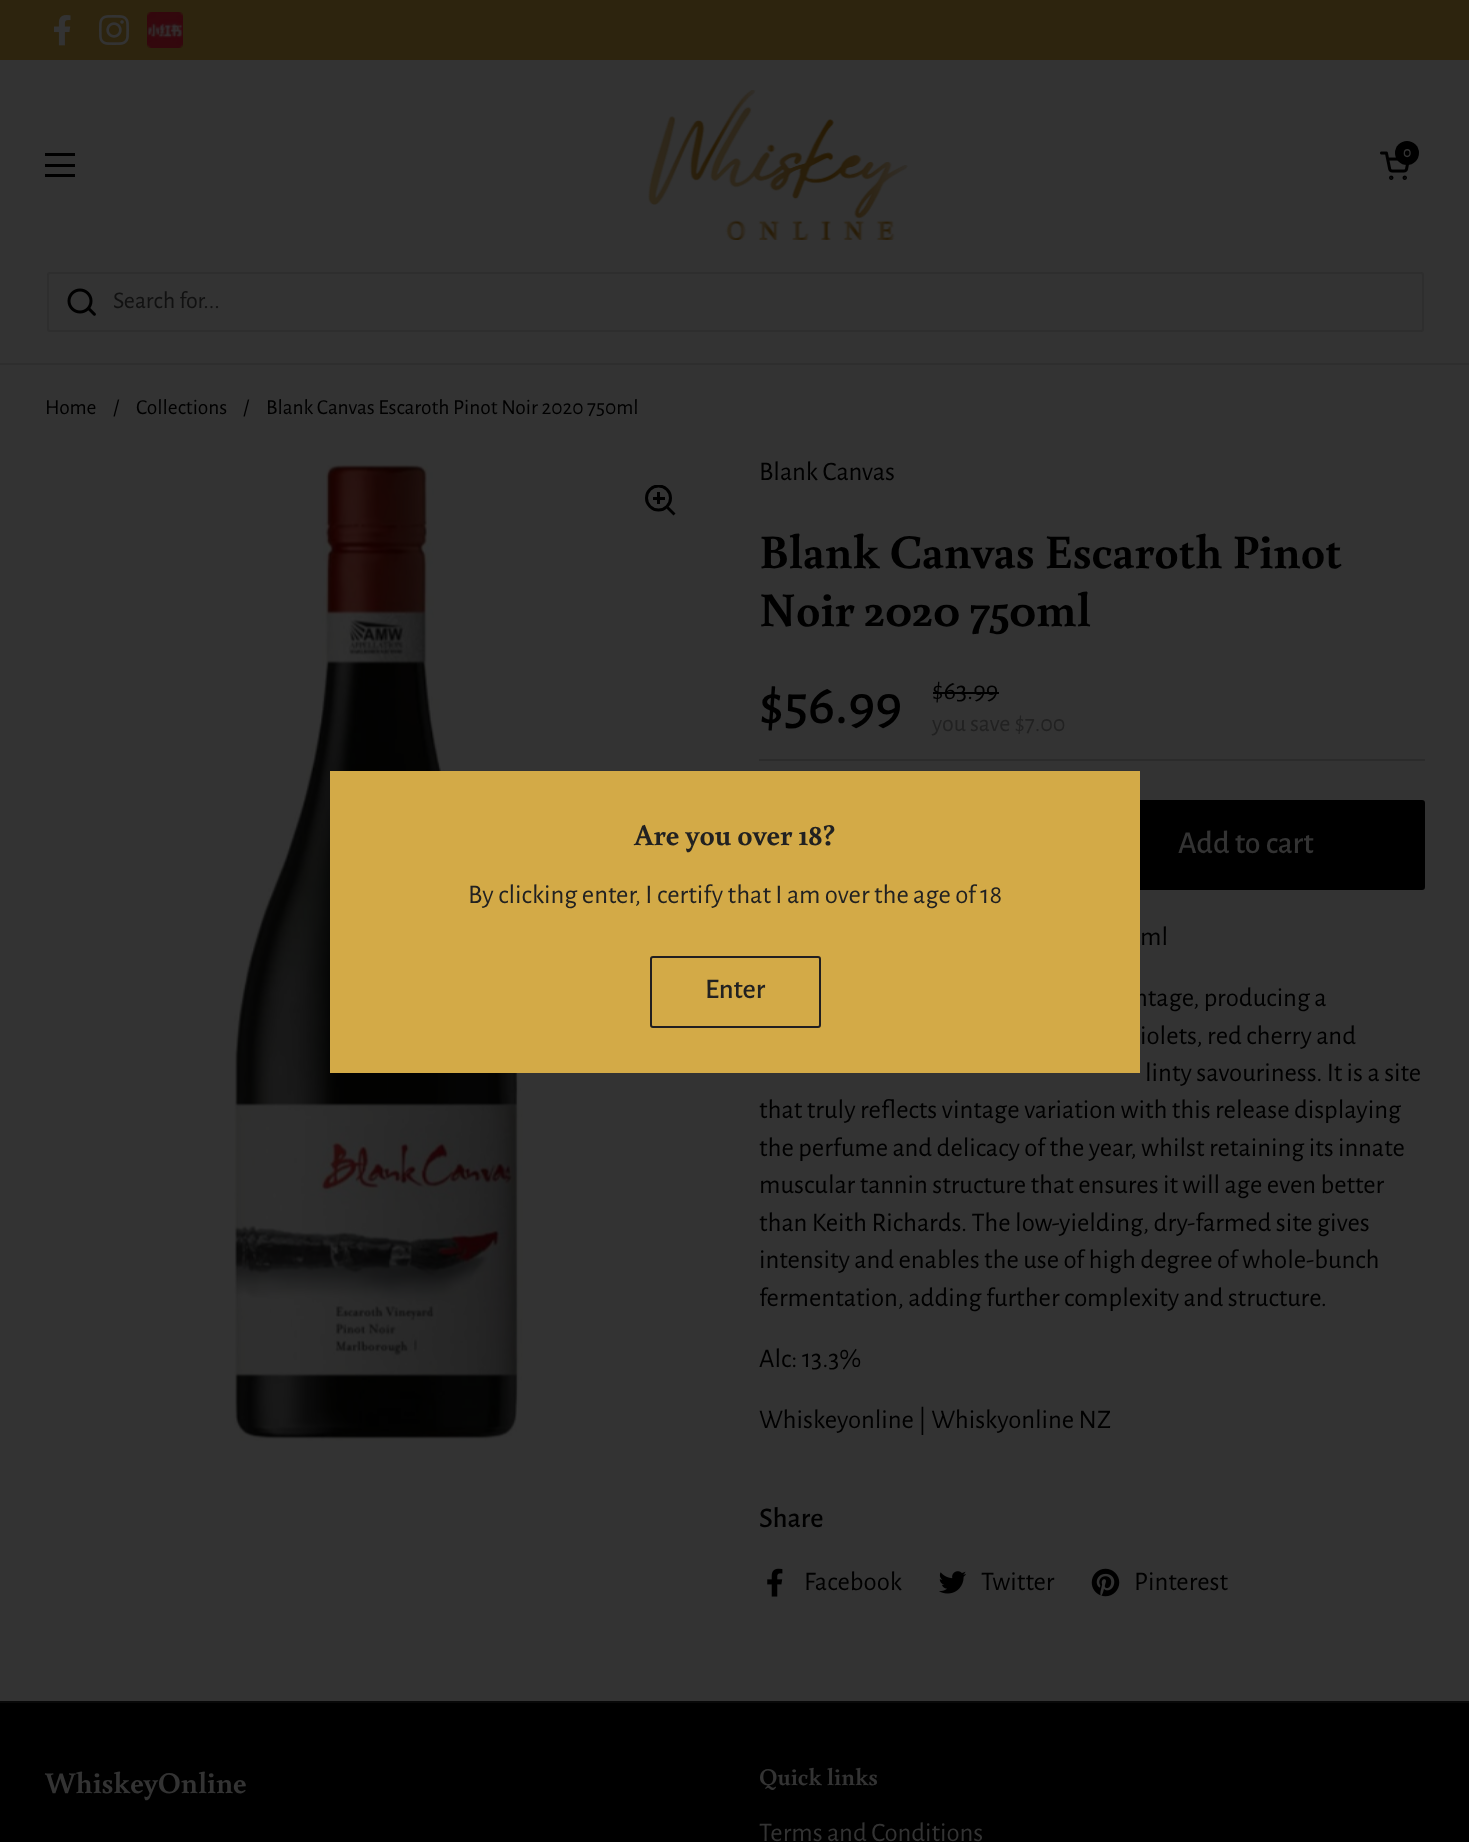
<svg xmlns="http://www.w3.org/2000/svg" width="1469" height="1842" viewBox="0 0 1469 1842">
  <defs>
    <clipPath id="clip1"><path d="M645 485h32v31H645z"/></clipPath>
  </defs>
  <rect width="100%" height="100%" fill="#333"/>
  <path d="M0 0h1469v60H0z" fill="#2d240e"/>
  <image x="54" y="15" width="17" height="31" href="img/1.png"/>
  <image x="99" y="15" width="30" height="30" href="img/2.png"/>
  <image x="147" y="12" width="36" height="36" href="img/3.png"/>
  <path d="M45 153h30v3H45z" fill="#000"/>
  <path d="M45 164h30v3H45z" fill="#000"/>
  <path d="M45 174h30v3H45z" fill="#000"/>
  <image x="648" y="90" width="260" height="150" href="img/4.png"/>
  <image x="1380" y="151" width="29" height="29" href="img/5.png"/>
  <circle cx="1407" cy="153" r="12" fill="#000"/>
  <path d="M0 363h1469v2H0z" fill="#2e2e2e"/>
  <rect x="48" y="273" width="1375" height="58" rx="2" fill="none" stroke="#2e2e2e" stroke-width="2"/>
  <image x="67" y="288" width="29" height="28" href="img/6.png"/>
  <image x="234" y="464" width="289" height="977" href="img/7.png"/>
  <g clip-path="url(#clip1)">
    <circle cx="658.5" cy="498" r="12" fill="none" stroke="#000" stroke-width="3"/>
  </g>
  <path d="M657 492h3v12H657z" fill="#000"/>
  <path d="M653 497h12v3H653z" fill="#000"/>
  <path d="M666.5 508.5L668.5 506.5L675.5 513.5L673.5 515.5Z" fill="#000"/>
  <path d="M933 692h66v2H933z" fill="#000"/>
  <path d="M759 759h666v2H759z" fill="#2b2b2b"/>
  <rect x="1068" y="801" width="356" height="88" rx="2" fill="#000" stroke="#000" stroke-width="2"/>
  <image x="767" y="1568" width="16" height="29" href="img/8.png"/>
  <image x="939" y="1571" width="27" height="23" href="img/9.png"/>
  <image x="1091" y="1568" width="29" height="29" href="img/10.png"/>
  <path d="M0 1703h1469v139H0z" fill="#000"/>
  <path d="M0 1701h1469v2H0z" fill="#080808"/>
  <text x="1403" y="157" font-family="Alegreya Sans" font-size="16" font-weight="500" fill="#333">0</text>
  <text x="113" y="308" font-family="Alegreya Sans" font-size="24" fill="#111">Search for...</text>
  <g font-family="Alegreya Sans" font-size="21.4" fill="#000">
    <text x="45" y="414">Home</text>
    <text x="113" y="414">/</text>
    <text x="136" y="414">Collections</text>
    <text x="243" y="414">/</text>
    <text x="266" y="414">Blank Canvas Escaroth Pinot Noir 2020 750ml</text>
  </g>
  <text x="759" y="480" font-family="Alegreya Sans" font-size="26.75" fill="#000">Blank Canvas</text>
  <g font-family="Buenard" font-size="48" font-weight="bold" fill="#000">
    <text x="759" y="568">Blank Canvas Escaroth Pinot</text>
    <text x="759" y="626">Noir 2020 750ml</text>
  </g>
  <text x="759" y="723" font-family="Alegreya Sans" font-size="57" font-weight="500" fill="#000">$56.99</text>
  <text x="932" y="699" font-family="Alegreya Sans" font-size="26.75" fill="#000">$63.99</text>
  <text x="932" y="731" font-family="Alegreya Sans" font-size="24" fill="#212121">you save $7.00</text>
  <text x="1178" y="853" font-family="Alegreya Sans" font-size="32" font-weight="500" fill="#333">Add to cart</text>
  <g font-family="Alegreya Sans" font-size="26.75" fill="#000">
    <text x="1140" y="945">ml</text>
    <text x="1134" y="1006">ntage, producing a</text>
    <text x="1140" y="1044">iolets, red cherry and</text>
    <text x="1145" y="1081">linty savouriness. It is a site</text>
    <text x="759" y="1118">that truly reflects vintage variation with this release displaying</text>
    <text x="759" y="1156">the perfume and delicacy of the year, whilst retaining its innate</text>
    <text x="759" y="1193">muscular tannin structure that ensures it will age even better</text>
    <text x="759" y="1231">than Keith Richards. The low-yielding, dry-farmed site gives</text>
    <text x="759" y="1268">intensity and enables the use of high degree of whole-bunch</text>
    <text x="759" y="1306">fermentation, adding further complexity and structure.</text>
    <text x="759" y="1367">Alc: 13.3%</text>
    <text x="759" y="1428">Whiskeyonline | Whiskyonline NZ</text>
  </g>
  <text x="759" y="1527" font-family="Alegreya Sans" font-size="28.5" font-weight="500" fill="#000">Share</text>
  <g font-family="Alegreya Sans" font-size="26.75" fill="#000">
    <text x="804" y="1590">Facebook</text>
    <text x="981" y="1590">Twitter</text>
    <text x="1134" y="1590">Pinterest</text>
  </g>
  <path d="M330 771h810v302H330z" fill="#d3aa47"/>
  <text x="634" y="845" font-family="Buenard" font-size="30" font-weight="bold" fill="#212121">Are you over 18?</text>
  <text x="468" y="903" font-family="Alegreya Sans" font-size="26.75" fill="#212121">By clicking enter, I certify that I am over the age of 18</text>
  <rect x="651" y="957" width="169" height="70" rx="2" fill="none" stroke="#201e20" stroke-width="2"/>
  <text x="705" y="998" font-family="Alegreya Sans" font-size="28.5" font-weight="500" fill="#212121">Enter</text>
  <text x="45" y="1793" font-family="Buenard" font-size="30" font-weight="bold" fill="#333">WhiskeyOnline</text>
  <text x="759" y="1785" font-family="Buenard" font-size="24" font-weight="bold" fill="#333">Quick links</text>
  <text x="759" y="1841" font-family="Alegreya Sans" font-size="26.75" fill="#333">Terms and Conditions</text>
</svg>
